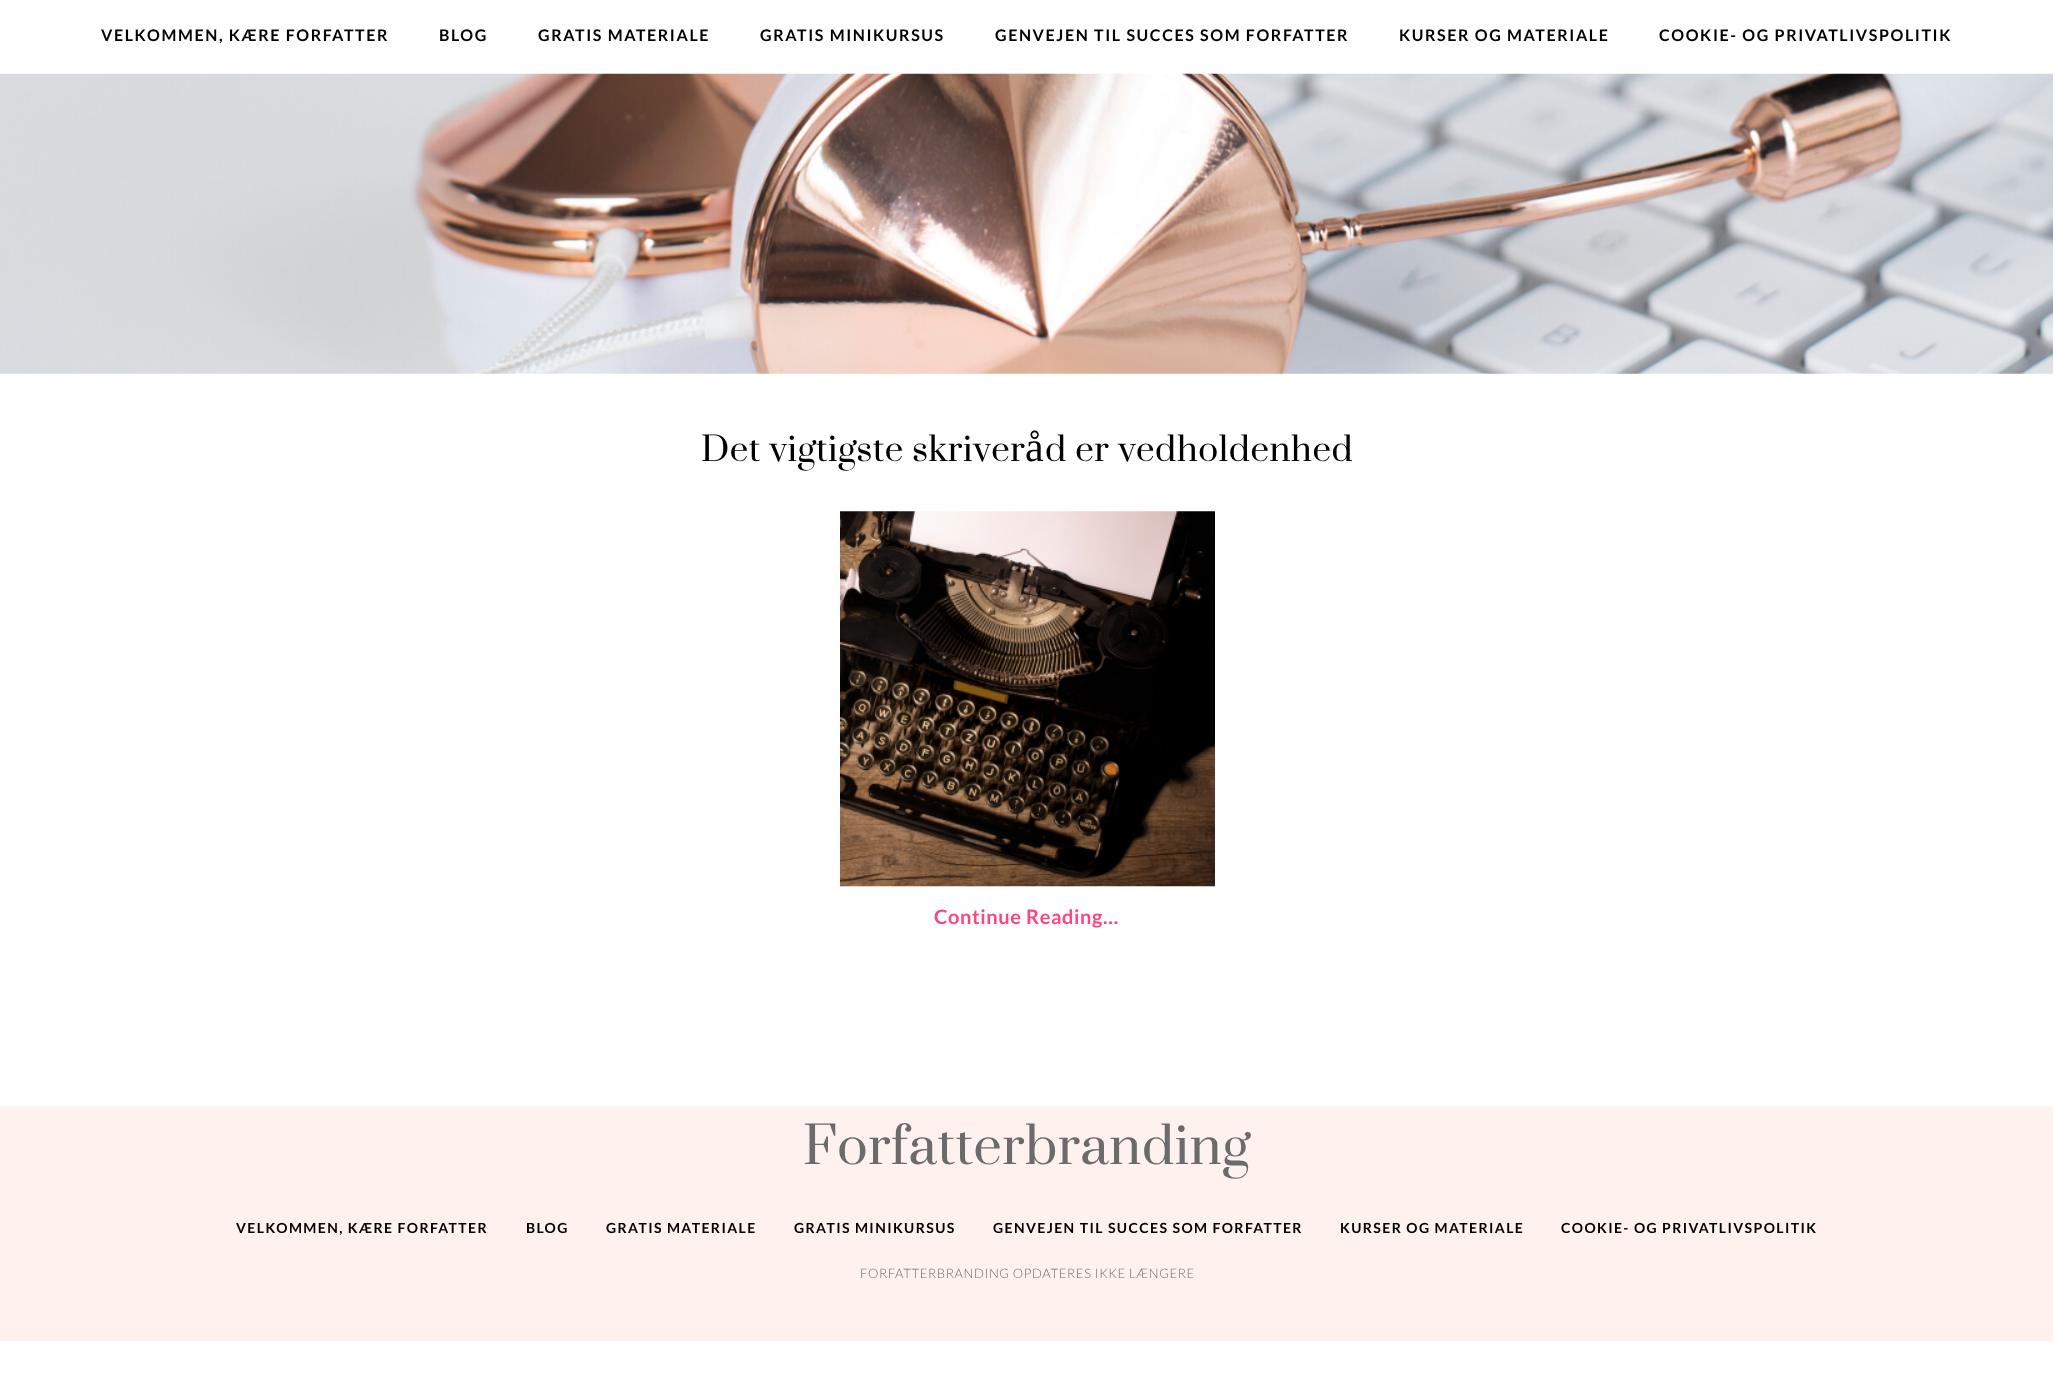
<svg xmlns="http://www.w3.org/2000/svg" width="2053" height="1398" viewBox="0 0 2053 1398">
  <rect width="100%" height="100%" fill="#fff"/>
  <image x="0" y="73" width="2053" height="301" href="img/1.png"/>
  <image x="840" y="511" width="375" height="376" href="img/2.png"/>
  <path d="M0 1106h2053v235H0z" fill="#fff1ee"/>
  <g font-family="Lato" font-size="16" font-weight="bold" letter-spacing="1.6" fill="#000">
    <text x="101" y="41">VELKOMMEN, KÆRE FORFATTER</text>
    <text x="439" y="41">BLOG</text>
    <text x="538" y="41">GRATIS MATERIALE</text>
    <text x="760" y="41">GRATIS MINIKURSUS</text>
    <text x="995" y="41">GENVEJEN TIL SUCCES SOM FORFATTER</text>
    <text x="1399" y="41">KURSER OG MATERIALE</text>
    <text x="1659" y="41">COOKIE- OG PRIVATLIVSPOLITIK</text>
  </g>
  <text x="701" y="461" font-family="Suranna" font-size="42" letter-spacing="0.6" fill="#000">Det vigtigste skriver</text>
  <text x="1025" y="461" font-family="Liberation Serif" font-size="42" letter-spacing="0.6" fill="#000">å</text>
  <text x="1045" y="461" font-family="Suranna" font-size="42" letter-spacing="0.6" fill="#000">d er vedholdenhed</text>
  <text x="934" y="924" font-family="Lato" font-size="20" font-weight="bold" letter-spacing="0.6" fill="#fc477e">Continue Reading…</text>
  <text x="803" y="1164" font-family="Suranna" font-size="64" letter-spacing="0.6" fill="#6b6b6b">Forfatterbranding</text>
  <g font-family="Lato" font-size="14" font-weight="bold" letter-spacing="1.4" fill="#000">
    <text x="236" y="1233">VELKOMMEN, KÆRE FORFATTER</text>
    <text x="526" y="1233">BLOG</text>
    <text x="606" y="1233">GRATIS MATERIALE</text>
    <text x="794" y="1233">GRATIS MINIKURSUS</text>
    <text x="993" y="1233">GENVEJEN TIL SUCCES SOM FORFATTER</text>
    <text x="1340" y="1233">KURSER OG MATERIALE</text>
    <text x="1561" y="1233">COOKIE- OG PRIVATLIVSPOLITIK</text>
  </g>
  <text x="860" y="1278" font-family="Lato" font-size="13" font-weight="300" letter-spacing="0.6" fill="#6b6b6b">FORFATTERBRANDING OPDATERES IKKE LÆNGERE</text>
</svg>
